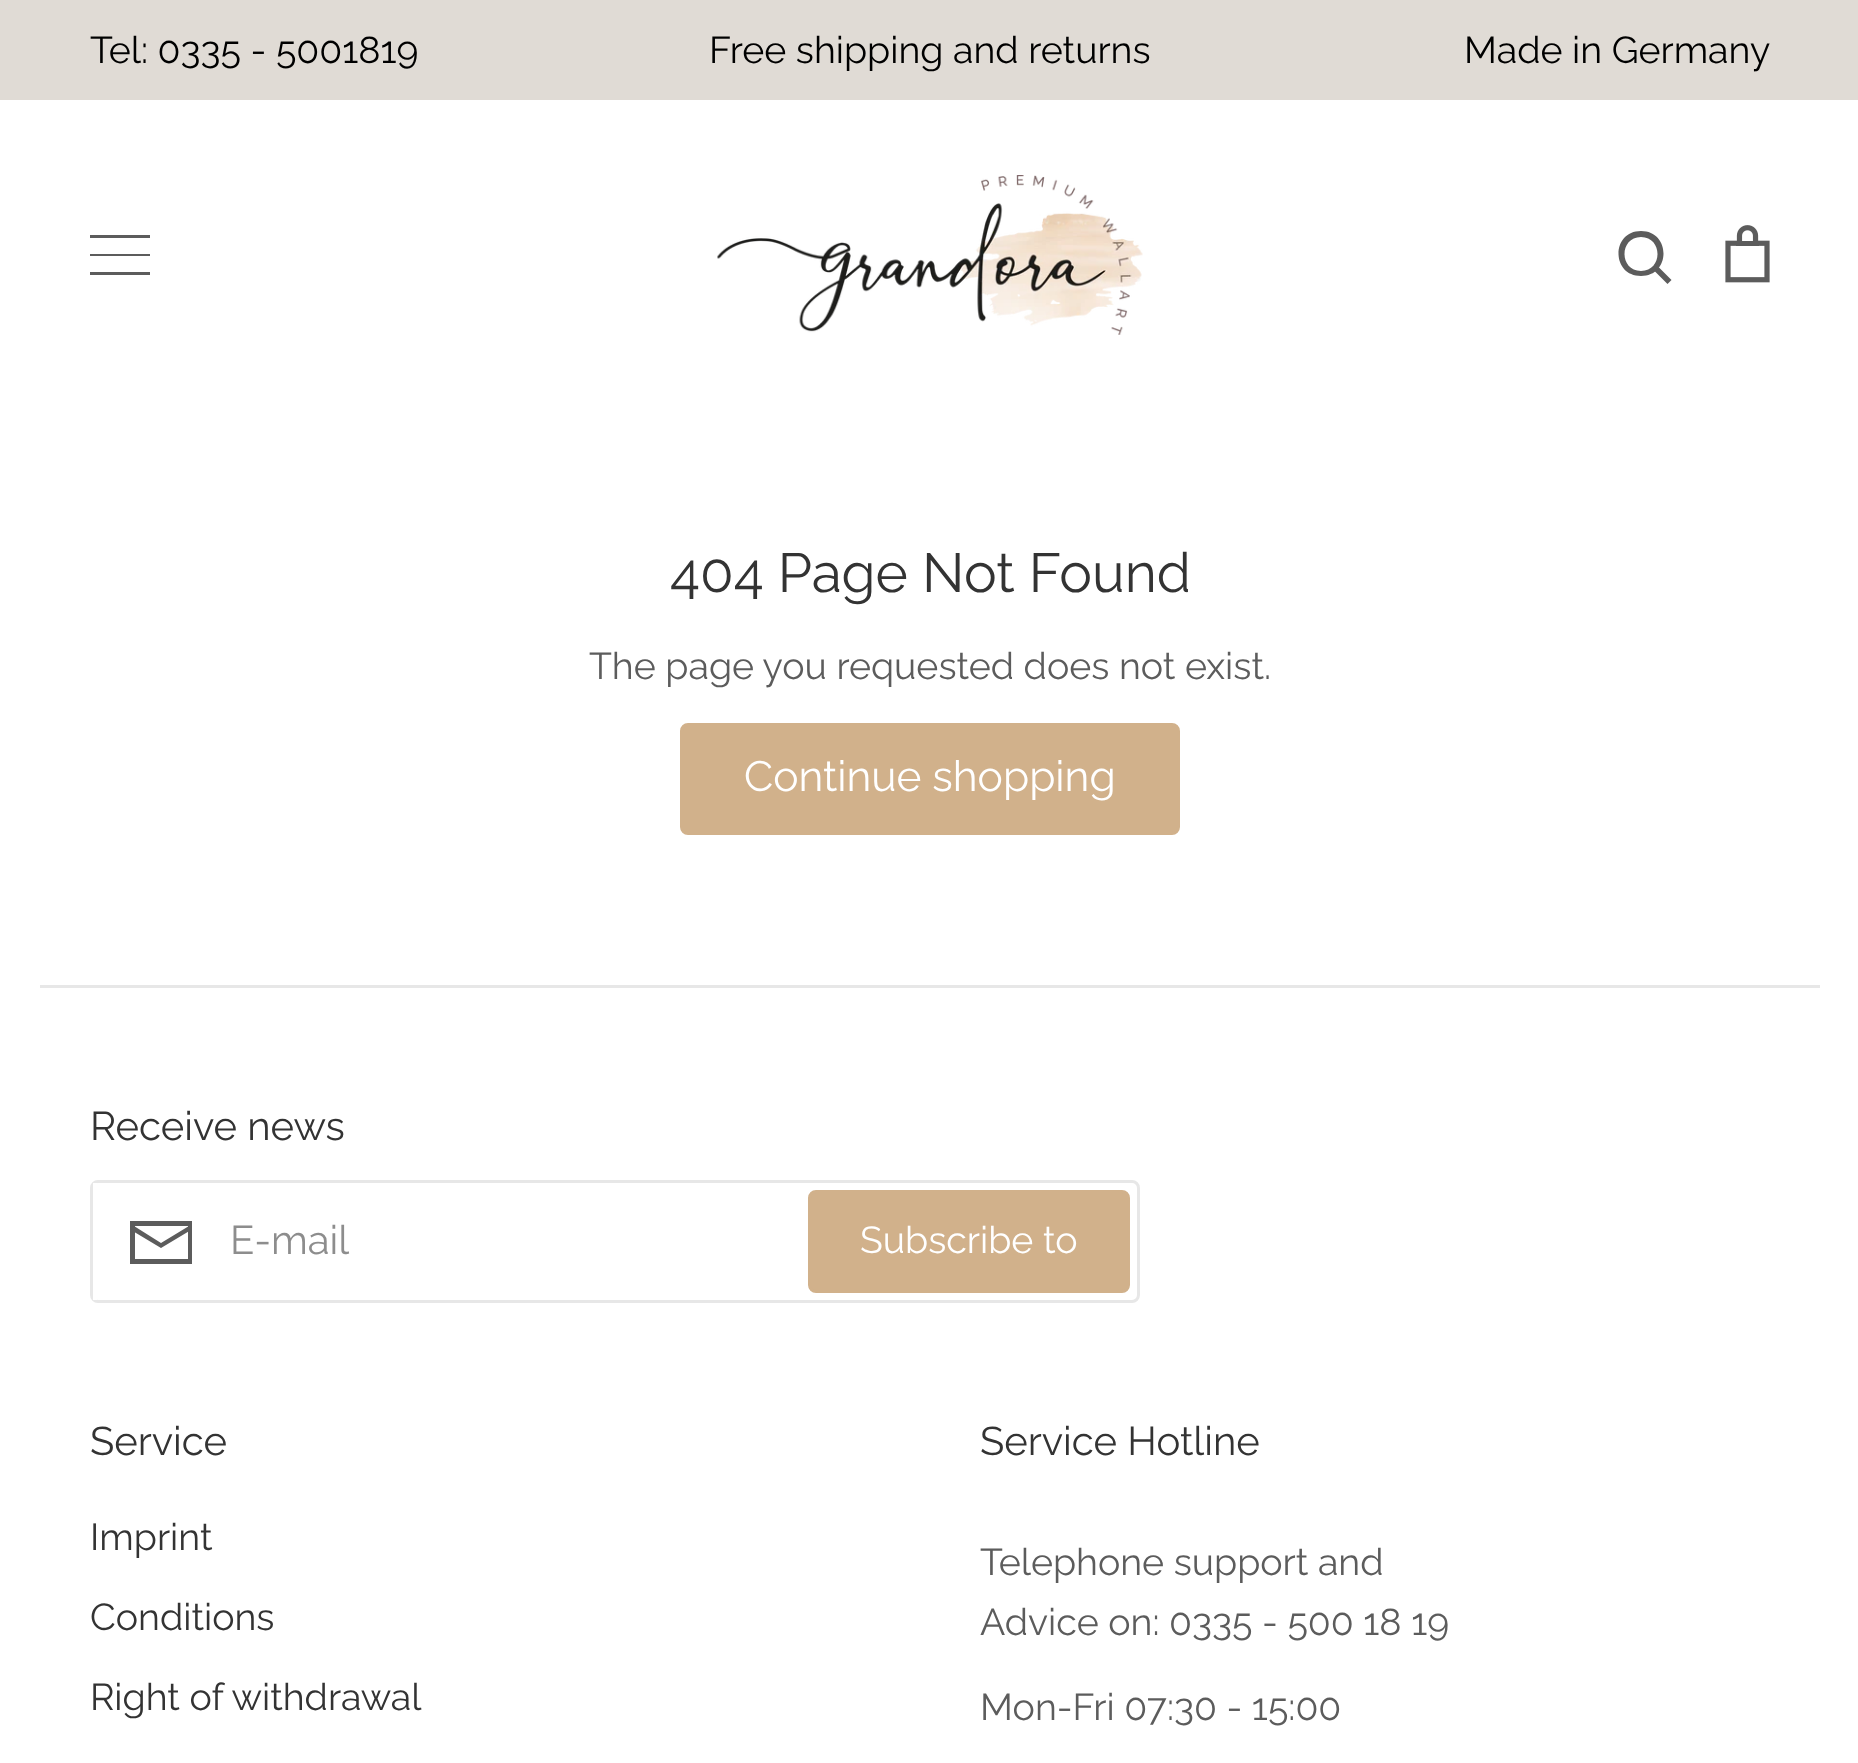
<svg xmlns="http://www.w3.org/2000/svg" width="1858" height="1763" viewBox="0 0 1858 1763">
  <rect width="100%" height="100%" fill="#fff"/>
  <path d="M0 0h1858v100H0z" fill="#e0dbd5"/>
  <path d="M90 235h60v3H90z" fill="#5c5c5c"/>
  <path d="M90 254h60v2H90z" fill="#5c5c5c"/>
  <path d="M90 272h60v3H90z" fill="#5c5c5c"/>
  <image x="717" y="175" width="426" height="160" href="img/1.png"/>
  <path d="M1671.5 280L1667.5 284L1654.5 271L1658.5 267Z" fill="#5c5c5c"/>
  <path d="M1641 276C1611 276 1611 231 1641 231C1671 231 1671 276 1641 276ZM1641 271C1663 271 1663 237 1641 237C1619 237 1619 271 1641 271Z" fill="#5c5c5c"/>
  <image x="1725" y="225" width="45" height="58" href="img/2.png"/>
  <rect x="681.5" y="724.5" width="497" height="109" rx="6.5" fill="#d1b18b" stroke="#d1b18b" stroke-width="3"/>
  <path d="M40 985h1780v3H40z" fill="#e7e7e7"/>
  <rect x="91.5" y="1181.5" width="1047" height="120" rx="6.5" fill="none" stroke="#e7e7e7" stroke-width="3"/>
  <path d="M130 1221H192V1264H130ZM135 1226V1259H188V1226Z" fill="#5c5c5c"/>
  <path d="M163 1243H160H161ZM189 1226L191 1230L161 1248L131 1230L134 1226L161 1243Z" fill="#5c5c5c"/>
  <path d="M93 1183h4v117H93z" fill="#fff"/>
  <rect x="809.5" y="1191.5" width="319" height="100" rx="6.5" fill="#d1b18b" stroke="#d1b18b" stroke-width="3"/>
  <g font-family="Raleway" font-size="37.5" fill="#000">
    <text x="90" y="63">Tel: 0335 - 5001819</text>
    <text x="709" y="63">Free shipping and returns</text>
    <text x="1464" y="63">Made in Germany</text>
  </g>
  <text x="670" y="592" font-family="Raleway" font-size="55" fill="#333">404 Page Not Found</text>
  <text x="589" y="679" font-family="Raleway" font-size="37.5" fill="#5c5c5c">The page you requested does not exist.</text>
  <text x="744" y="791" font-family="Raleway" font-size="42.5" fill="#fff">Continue shopping</text>
  <text x="90" y="1140" font-family="Raleway" font-size="40" fill="#333">Receive news</text>
  <text x="230" y="1254" font-family="Raleway" font-size="40" fill="#8d8d8d">E-mail</text>
  <text x="860" y="1253" font-family="Raleway" font-size="37.5" fill="#fff">Subscribe to</text>
  <text x="90" y="1455" font-family="Raleway" font-size="40" fill="#333">Service</text>
  <g font-family="Raleway" font-size="37.5" fill="#333">
    <text x="90" y="1550">Imprint</text>
    <text x="90" y="1630">Conditions</text>
    <text x="90" y="1710">Right of withdrawal</text>
  </g>
  <text x="980" y="1455" font-family="Raleway" font-size="40" fill="#333">Service Hotline</text>
  <g font-family="Raleway" font-size="37.5" fill="#5c5c5c">
    <text x="980" y="1575">Telephone support and</text>
    <text x="980" y="1635">Advice on: 0335 - 500 18 19</text>
    <text x="980" y="1720">Mon-Fri 07:30 - 15:00</text>
  </g>
</svg>
